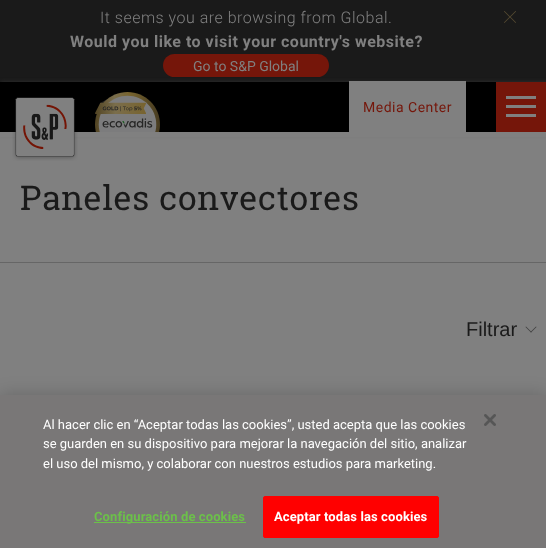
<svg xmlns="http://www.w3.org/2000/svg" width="546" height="548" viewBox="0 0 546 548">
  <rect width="100%" height="100%" fill="#808080"/>
  <path d="M0 0h546v82H0z" fill="#1a1a1a"/>
  <rect x="163" y="54" width="166" height="23" rx="11.5" fill="#75160a"/>
  <image x="504" y="11" width="12" height="12" href="img/1.png"/>
  <path d="M1 83h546v50H1z" fill="#3e3e3e" filter="blur(2.5px)"/>
  <path d="M0 82h496v50H0z" fill="#000"/>
  <path d="M0 132h546v5H0z" fill="#808080"/>
  <image x="12" y="97" width="66" height="64" href="img/2.png"/>
  <image x="95" y="92" width="65" height="40" href="img/3.png"/>
  <path d="M349 81h117v51H349z" fill="#808080"/>
  <path d="M496 82h50v50H496z" fill="#75160a"/>
  <path d="M506 96h30v3H506z" fill="#808080"/>
  <path d="M506 105h30v3H506z" fill="#808080"/>
  <path d="M506 114h30v3H506z" fill="#808080"/>
  <path d="M0 262h546v1H0z" fill="#666"/>
  <path d="M536.5 327L531 332.5L530.5 332L536 326.5Z" fill="#3e3e3e"/>
  <path d="M531.5 332L531 332.5L525.5 327L526 326.5Z" fill="#3e3e3e"/>
  <path d="M0 395h546v153H0z" fill="#00000033" filter="blur(9px)"/>
  <path d="M0 395h546v153H0z" fill="#797777"/>
  <image x="484" y="414" width="12" height="12" href="img/4.png"/>
  <path d="M94 522h152v1H94z" fill="#6cc04a"/>
  <rect x="263.5" y="496.5" width="175" height="41" rx="1.5" fill="#f00" stroke="#f00"/>
  <text x="100" y="23" font-family="Roboto" font-size="16" font-weight="300" letter-spacing="0.5" fill="#808080">It seems you are browsing from Global.</text>
  <text x="70" y="47" font-family="Roboto" font-size="16" font-weight="bold" letter-spacing="0.5" fill="#808080">Would you like to visit your country's website?</text>
  <text x="193" y="71" font-family="Roboto" font-size="14" fill="#808080">Go to S&amp;P Global</text>
  <text x="363" y="112" font-family="Roboto" font-size="14" letter-spacing="0.5" fill="#75160a">Media Center</text>
  <text x="20" y="210" font-family="Roboto Slab" font-size="34" letter-spacing="0.5" fill="#1a1a1a">Paneles convectores</text>
  <text x="466" y="336" font-family="Liberation Sans" font-size="20" fill="#1a1a1a">Filtrar</text>
  <g font-family="Roboto" font-size="13" fill="#fff">
    <text x="43" y="429">Al hacer clic en “Aceptar todas las cookies”, usted acepta que las cookies</text>
    <text x="43" y="448">se guarden en su dispositivo para mejorar la navegación del sitio, analizar</text>
    <text x="43" y="468">el uso del mismo, y colaborar con nuestros estudios para marketing.</text>
  </g>
  <text x="94" y="521" font-family="Roboto" font-size="13" font-weight="bold" letter-spacing="0.1" fill="#6cc04a">Configuración de cookies</text>
  <text x="274" y="521" font-family="Roboto" font-size="13" font-weight="bold" letter-spacing="0.1" fill="#fff">Aceptar todas las cookies</text>
</svg>
